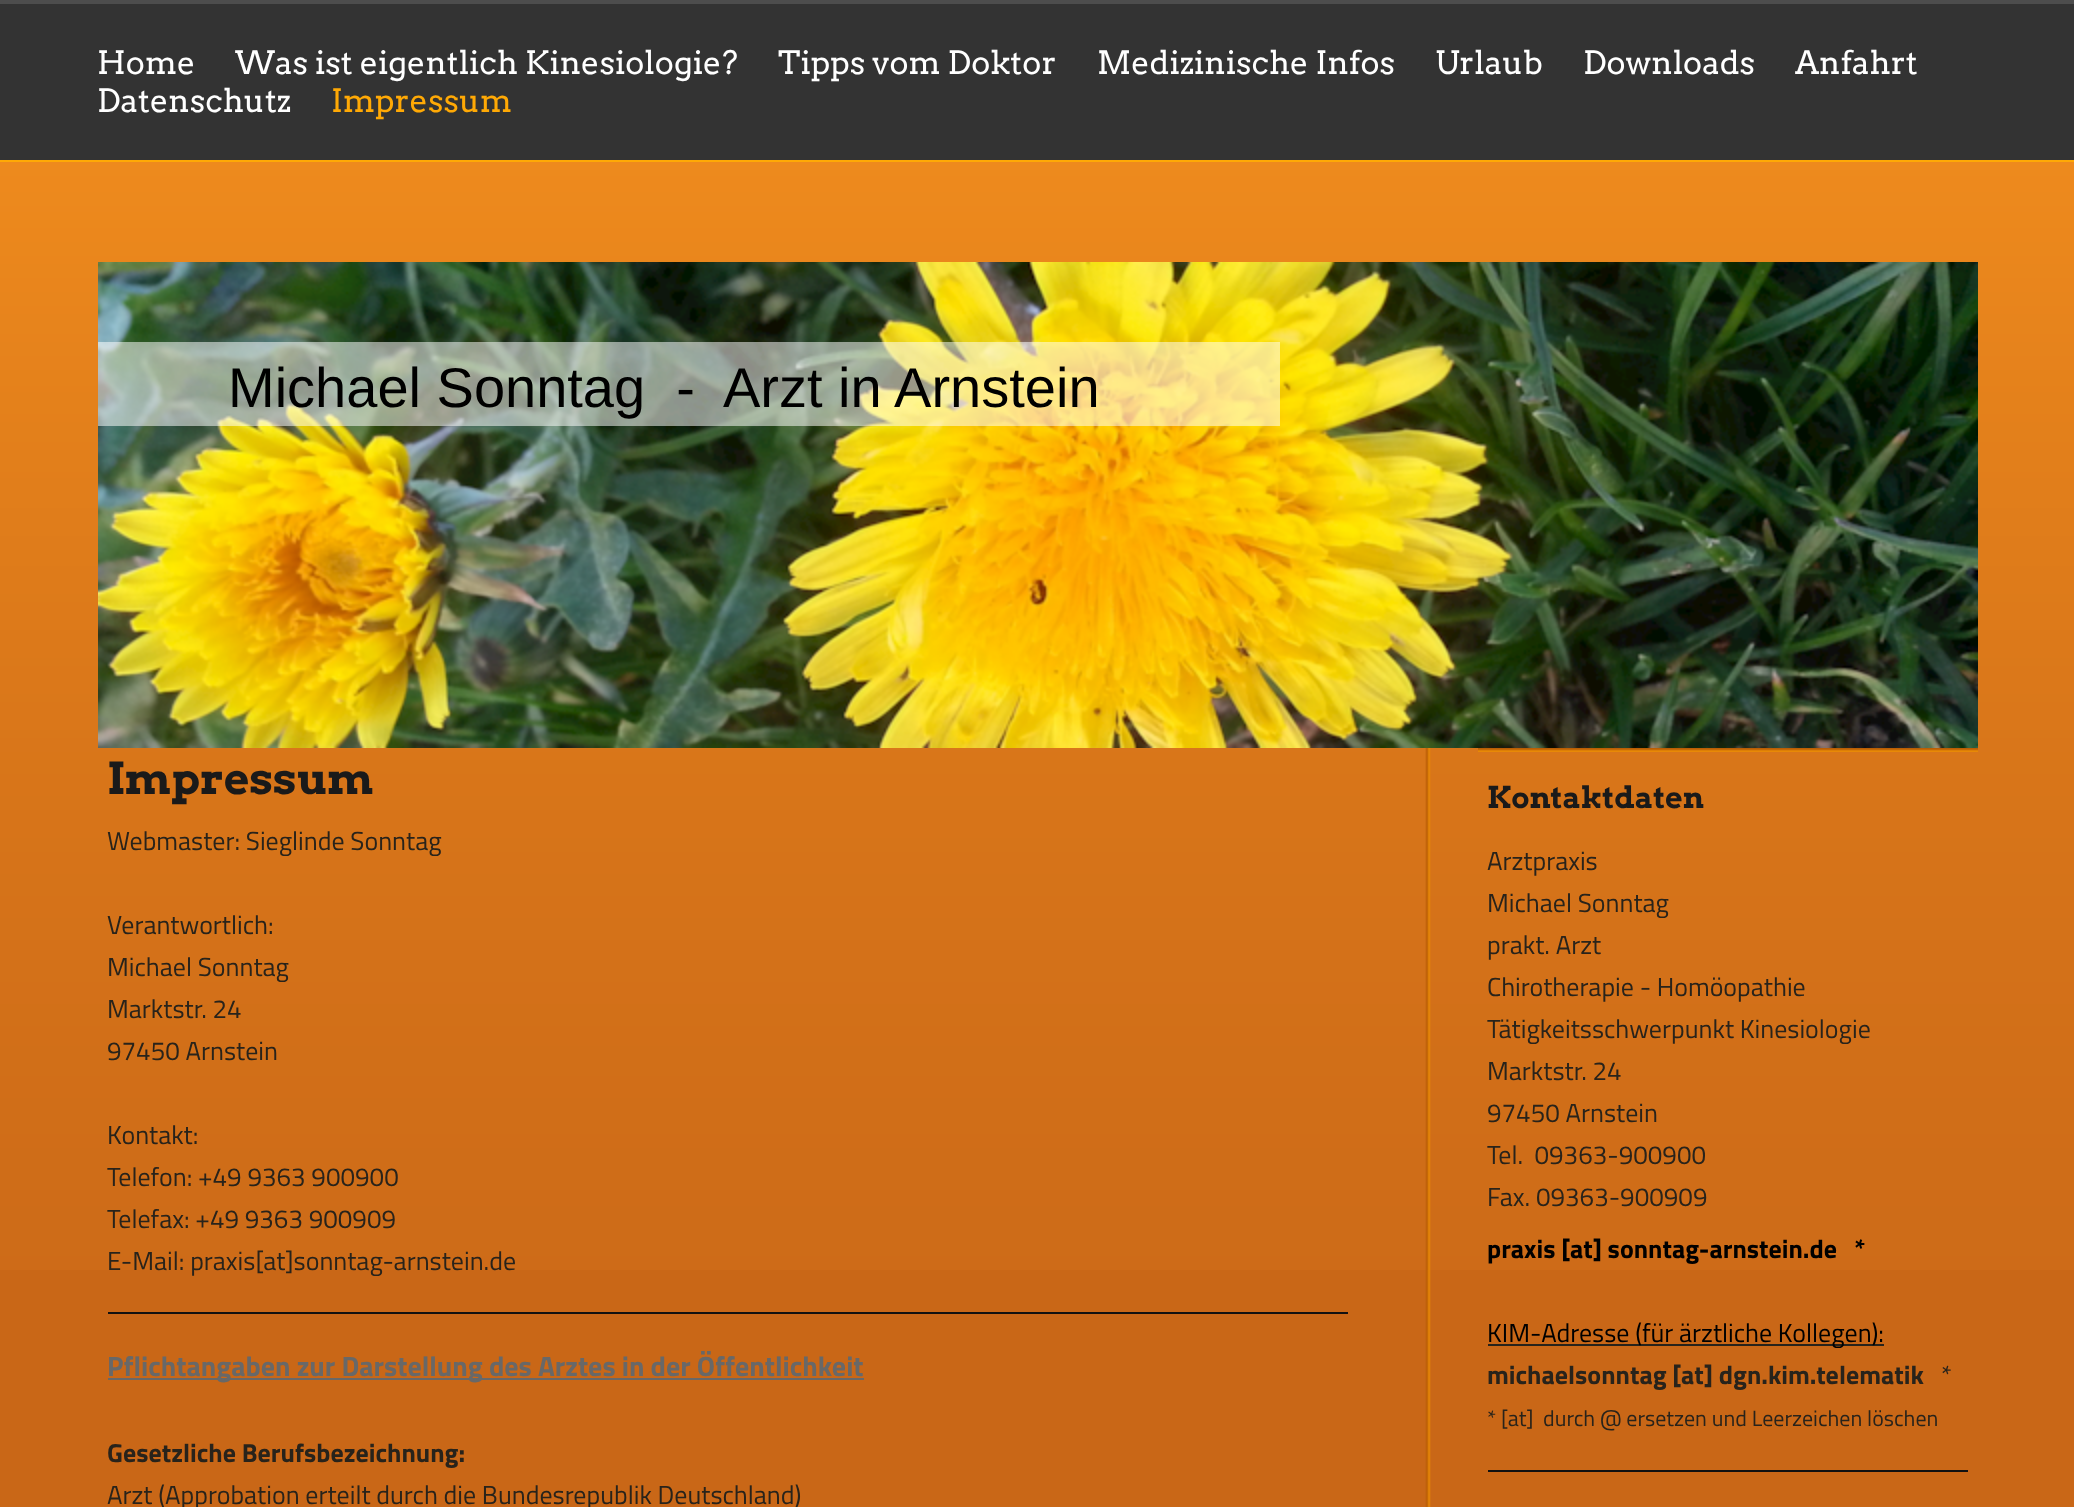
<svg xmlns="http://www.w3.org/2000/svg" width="2074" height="1507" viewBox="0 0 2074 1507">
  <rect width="100%" height="100%" fill="#c96717"/>
  <image x="0" y="162" width="2074" height="1108" href="img/1.png"/>
  <path d="M0 4h2074v156H0z" fill="#333"/>
  <path d="M0 0h2074v4H0z" fill="#4d4d4d"/>
  <path d="M0 160h2074v2H0z" fill="#ffa905"/>
  <image x="98" y="262" width="1880" height="486" href="img/2.png"/>
  <path d="M98 342h1182v84H98z" fill="#ffffff87"/>
  <image x="1425" y="748" width="6" height="759" href="img/3.png"/>
  <path d="M108 1312h1240v2H108z" fill="#111"/>
  <path d="M108 1378h756v2H108z" fill="#686868"/>
  <image x="1478" y="748" width="500" height="4" href="img/4.png"/>
  <path d="M1488 1344h396v2H1488z" fill="#28231b"/>
  <path d="M1488 1470h480v2H1488z" fill="#111"/>
  <g font-family="Arvo" font-size="32" fill="#fff">
    <text x="97" y="74">Home</text>
    <text x="235" y="74">Was ist eigentlich Kinesiologie?</text>
    <text x="778" y="74">Tipps vom Doktor</text>
    <text x="1097" y="74">Medizinische Infos</text>
    <text x="1435" y="74">Urlaub</text>
    <text x="1583" y="74">Downloads</text>
    <text x="1795" y="74">Anfahrt</text>
    <text x="97" y="112">Datenschutz</text>
  </g>
  <text x="331" y="112" font-family="Arvo" font-size="32" fill="#ffa905">Impressum</text>
  <text x="228" y="407" font-family="Liberation Sans" font-size="56" fill="#000" xml:space="preserve">Michael Sonntag  -  Arzt in Arnstein</text>
  <text x="107" y="794" font-family="Arvo" font-size="44" font-weight="bold" fill="#1a1a1a">Impressum</text>
  <g font-family="Titillium Web" font-size="26" fill="#28231b">
    <text x="107" y="850">Webmaster: Sieglinde Sonntag</text>
    <text x="107" y="934">Verantwortlich:</text>
    <text x="107" y="976">Michael Sonntag</text>
    <text x="107" y="1018">Marktstr. 24</text>
    <text x="107" y="1060">97450 Arnstein</text>
    <text x="107" y="1144">Kontakt:</text>
    <text x="107" y="1186">Telefon: +49 9363 900900</text>
    <text x="107" y="1228">Telefax: +49 9363 900909</text>
    <text x="107" y="1270">E-Mail: praxis[at]sonntag-arnstein.de</text>
  </g>
  <text x="107" y="1376" font-family="Titillium Web" font-size="28" font-weight="bold" fill="#686868">Pflichtangaben zur Darstellung des Arztes in der Öffentlichkeit</text>
  <text x="107" y="1462" font-family="Titillium Web" font-size="26" font-weight="bold" fill="#28231b">Gesetzliche Berufsbezeichnung:</text>
  <text x="107" y="1504" font-family="Titillium Web" font-size="26" fill="#28231b">Arzt (Approbation erteilt durch die Bundesrepublik Deutschland)</text>
  <text x="1487" y="808" font-family="Arvo" font-size="30" font-weight="bold" fill="#1a1a1a">Kontaktdaten</text>
  <g font-family="Titillium Web" font-size="26" fill="#28231b">
    <text x="1487" y="870">Arztpraxis</text>
    <text x="1487" y="912">Michael Sonntag</text>
    <text x="1487" y="954">prakt. Arzt</text>
    <text x="1487" y="996">Chirotherapie - Homöopathie</text>
    <text x="1487" y="1038">Tätigkeitsschwerpunkt Kinesiologie</text>
    <text x="1487" y="1080">Marktstr. 24</text>
    <text x="1487" y="1122">97450 Arnstein</text>
    <text x="1487" y="1164" xml:space="preserve">Tel.  09363-900900</text>
    <text x="1487" y="1206">Fax. 09363-900909</text>
  </g>
  <text x="1487" y="1258" font-family="Titillium Web" font-size="26" font-weight="bold" fill="#000" xml:space="preserve">praxis [at] sonntag-arnstein.de   *</text>
  <text x="1487" y="1342" font-family="Titillium Web" font-size="26" fill="#000">KIM-Adresse (für ärztliche Kollegen):</text>
  <text x="1487" y="1384" font-family="Titillium Web" font-size="26" font-weight="bold" fill="#28231b">michaelsonntag [at] dgn.kim.telematik</text>
  <text x="1941" y="1384" font-family="Titillium Web" font-size="26" fill="#28231b">*</text>
  <text x="1487" y="1426" font-family="Titillium Web" font-size="22" fill="#28231b" xml:space="preserve">* [at]  durch @ ersetzen und Leerzeichen löschen</text>
</svg>
